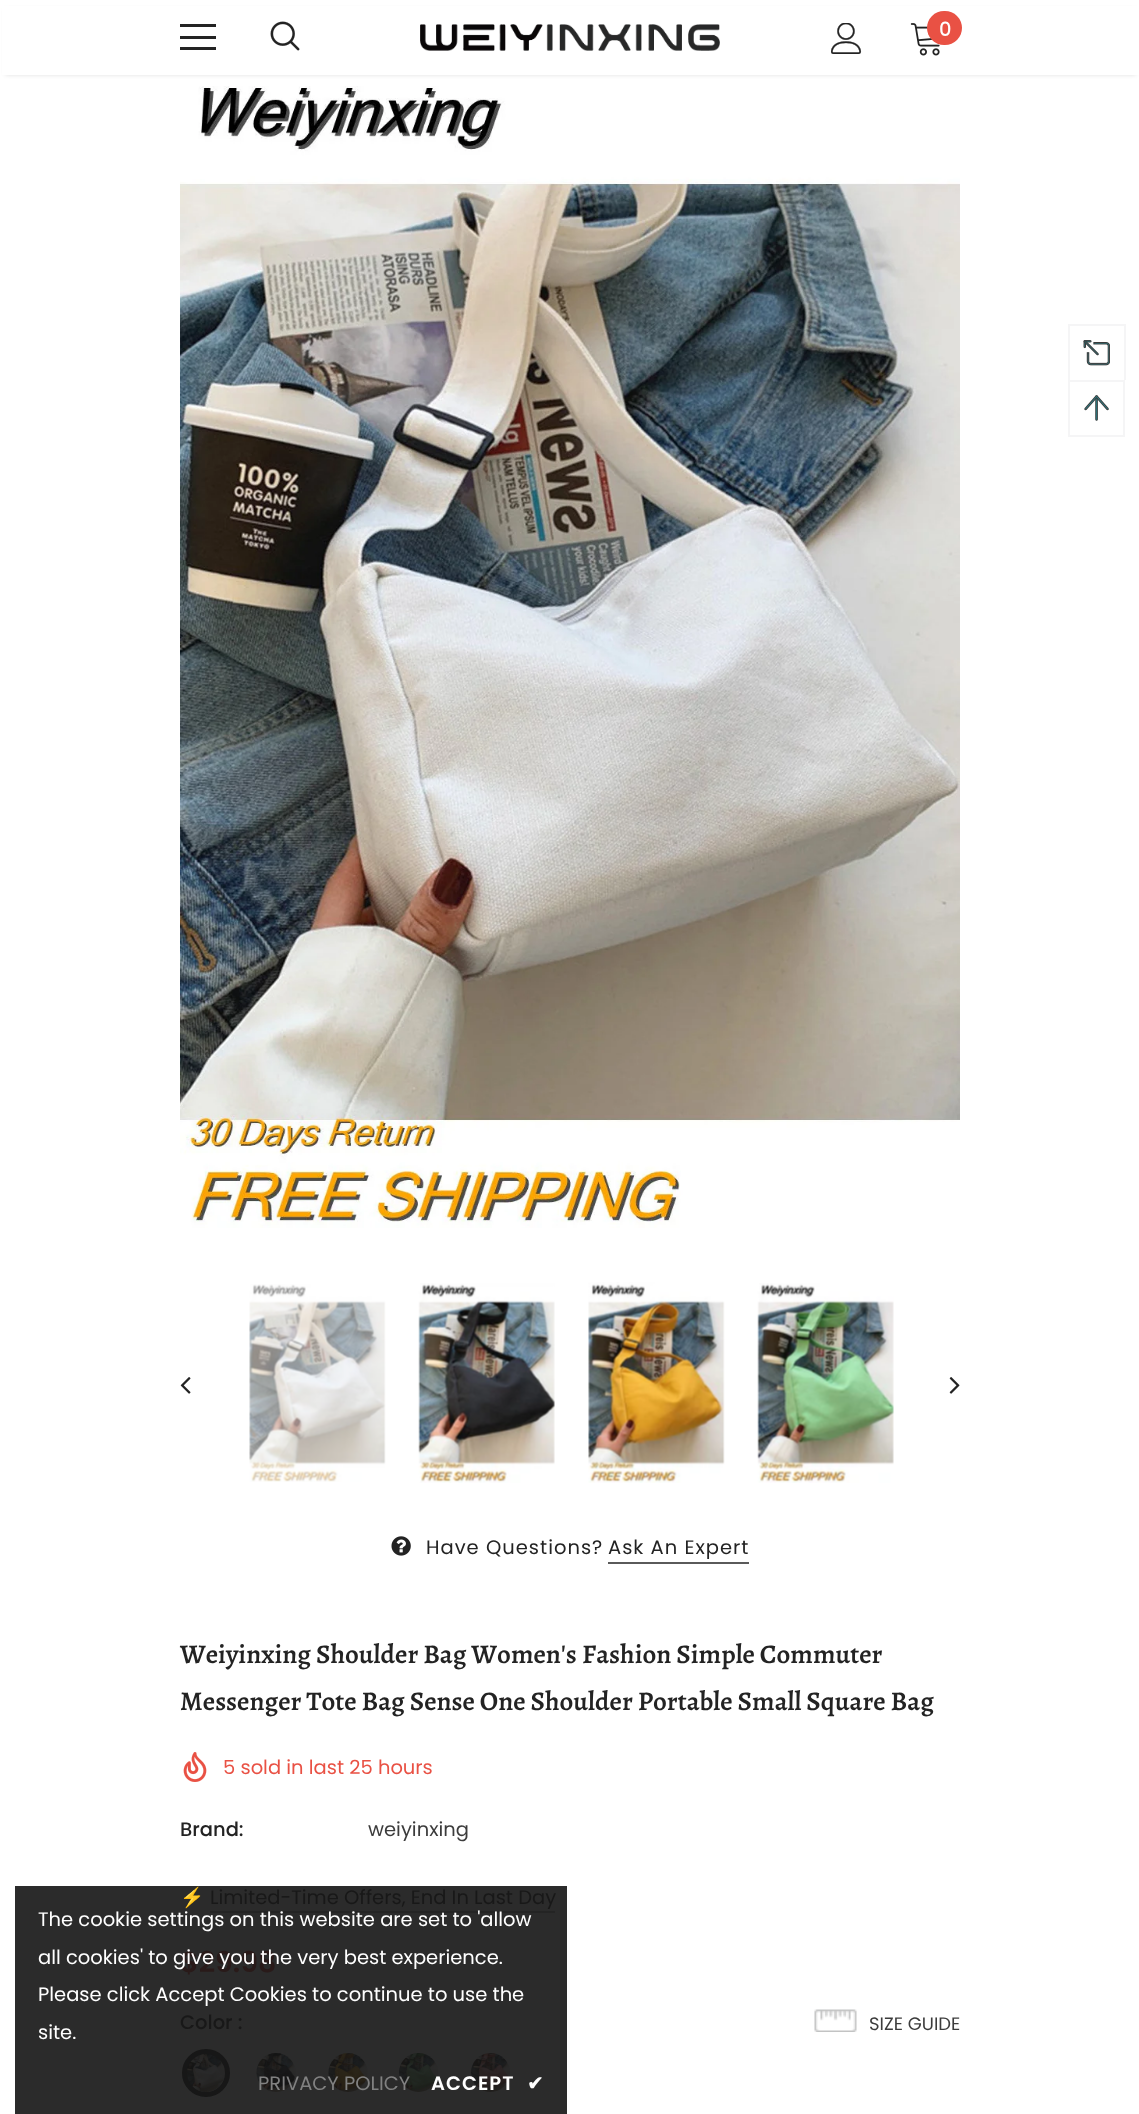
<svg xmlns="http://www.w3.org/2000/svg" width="1139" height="2114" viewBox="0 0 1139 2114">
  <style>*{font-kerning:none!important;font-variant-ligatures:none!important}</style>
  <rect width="100%" height="100%" fill="#fff"/>
  <path d="M15 1886h552v228H15z" fill="#2b2b2b"/>
  <path d="M5 9h1131v66H5z" fill="#0000001f" filter="blur(2px)"/>
  <path d="M2 6h1137v69H2z" fill="#fff"/>
  <path d="M180 24h36v3H180z" fill="#232323"/>
  <path d="M180 36h36v3H180z" fill="#232323"/>
  <path d="M180 47h36v3H180z" fill="#232323"/>
  <image x="270" y="21" width="30" height="30" href="img/1.png"/>
  <image x="420" y="24" width="300" height="27" href="img/2.png"/>
  <image x="831" y="23" width="31" height="31" href="img/3.png"/>
  <image x="910" y="23" width="30" height="33" href="img/4.png"/>
  <rect x="927" y="11" width="35" height="34" rx="17" fill="#e95144"/>
  <path d="M1068 324h57v2H1068z" fill="#f5f5f6"/>
  <path d="M1124 324h2v56H1124z" fill="#f5f5f6"/>
  <path d="M1068 324h2v56H1068z" fill="#f5f5f6"/>
  <image x="1083" y="340" width="27" height="26" href="img/5.png"/>
  <path d="M1069 381h55v55H1069z" fill="none" stroke="#f5f5f6" stroke-width="2"/>
  <image x="1084" y="395" width="25" height="26" href="img/6.png"/>
  <image x="180" y="86" width="780" height="1142" href="img/7.png"/>
  <image x="180" y="1377" width="11" height="17" href="img/8.png"/>
  <image x="249" y="1284" width="137" height="198" href="img/9.png"/>
  <image x="418" y="1283" width="137" height="200" href="img/10.png"/>
  <image x="588" y="1282" width="137" height="201" href="img/11.png"/>
  <image x="757" y="1283" width="137" height="200" href="img/12.png"/>
  <image x="949" y="1377" width="11" height="17" href="img/13.png"/>
  <image x="391" y="1536" width="20" height="20" href="img/14.png"/>
  <path d="M608 1562h141v2H608z" fill="#5a5a5a"/>
  <image x="183" y="1752" width="24" height="30" href="img/15.png"/>
  <path d="M210 1911h345v2H210z" fill="#242424"/>
  <image x="187" y="2054" width="38" height="38" href="img/16.png"/>
  <circle cx="206" cy="2073" r="21.5" fill="none" stroke="#171717" stroke-width="5"/>
  <image x="256" y="2053" width="40" height="39" href="img/17.png"/>
  <image x="328" y="2053" width="40" height="39" href="img/18.png"/>
  <image x="399" y="2053" width="39" height="39" href="img/19.png"/>
  <image x="470" y="2053" width="40" height="39" href="img/20.png"/>
  <image x="814" y="2009" width="43" height="23" href="img/21.png"/>
  <text x="939" y="36" font-family="Poppins" font-size="19.5" font-weight="500" fill="#fff">0</text>
  <g font-family="Poppins" font-size="19.5" letter-spacing="1" fill="#232323">
    <text x="426" y="1554">Have Questions?</text>
    <text x="608" y="1554">Ask An Expert</text>
  </g>
  <g font-family="Alegreya" font-size="27" font-weight="600" fill="#232323">
    <text x="180" y="1663">Weiyinxing Shoulder Bag Women's</text>
    <text x="582" y="1663">Fashion Simple Commuter</text>
    <text x="180" y="1710">Messenger Tote Bag Sense One Shoulder Portable Small Square Bag</text>
  </g>
  <text x="223" y="1774" font-family="Poppins" font-size="19.5" fill="#e95144">5 sold in last 25 hours</text>
  <text x="180" y="1836" font-family="Poppins" font-size="19.5" font-weight="500" fill="#232323">Brand:</text>
  <text x="368" y="1836" font-family="Poppins" font-size="19.5" fill="#3c3c3c">weiyinxing</text>
  <text x="180" y="1904" font-family="Noto Color Emoji" font-size="19.5" fill="#181818">⚡</text>
  <text x="210" y="1904" font-family="Poppins" font-size="19.5" fill="#181818">Limited-Time Offers, End In Last Day</text>
  <text x="180" y="1972" font-family="Poppins" font-size="28.5" font-weight="600" fill="#291a19">$29.98</text>
  <text x="180" y="2029" font-family="Poppins" font-size="19.5" font-weight="500" fill="#181818">Color :</text>
  <text x="869" y="2030" font-family="Poppins" font-size="18" fill="#3c3c3c">SIZE GUIDE</text>
  <g font-family="Poppins" font-size="19.5" fill="#fff">
    <text x="38" y="1926">The cookie settings on this website are set to 'allow</text>
    <text x="38" y="1964">all cookies' to give you the very best experience.</text>
    <text x="38" y="2001">Please click Accept Cookies to continue to use the</text>
    <text x="38" y="2039">site.</text>
  </g>
  <text x="258" y="2090" font-family="Poppins" font-size="19.5" fill="#818181">PRIVACY POLICY</text>
  <text x="431" y="2090" font-family="Poppins" font-size="19.5" font-weight="600" letter-spacing="1" fill="#fff">ACCEPT</text>
  <text x="527" y="2090" font-family="DejaVu Sans" font-size="19.5" font-weight="bold" letter-spacing="1" fill="#fff">✔</text>
</svg>
